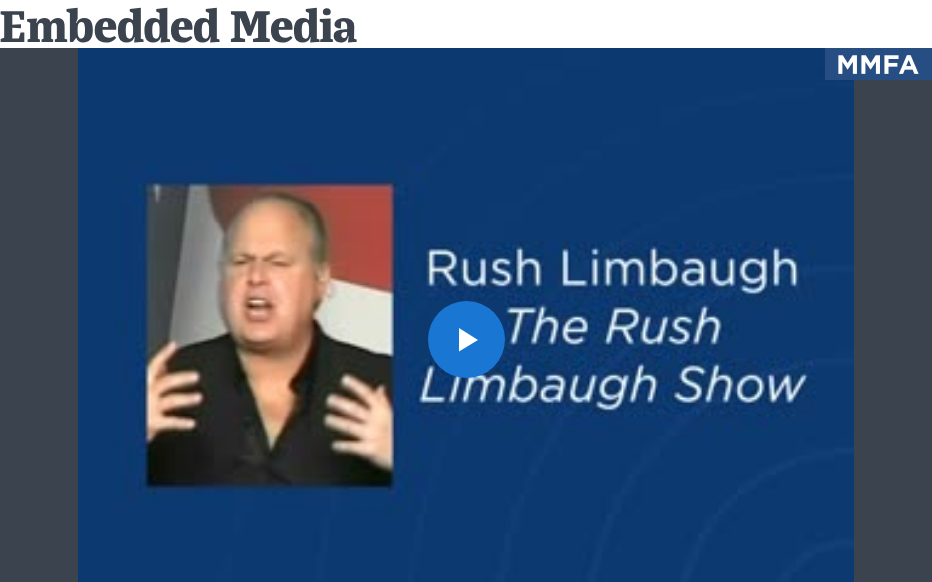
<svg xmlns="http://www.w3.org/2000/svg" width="932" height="582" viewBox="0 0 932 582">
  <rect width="100%" height="100%" fill="#fff"/>
  <path d="M0 48h932v534H0z" fill="#3a434e"/>
  <image x="78" y="48" width="776" height="534" href="img/1.png"/>
  <image x="825" y="48" width="107" height="32" href="img/2.png"/>
  <circle cx="466.5" cy="339.5" r="38.5" fill="#1976d2"/>
  <path d="M459 328L478 340L459 351.5Z" fill="#fff" fill-rule="evenodd"/>
  <text x="0" y="42" font-family="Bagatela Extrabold" font-size="48.25" font-weight="800" fill="#3a434e">Embedded Media</text>
</svg>
